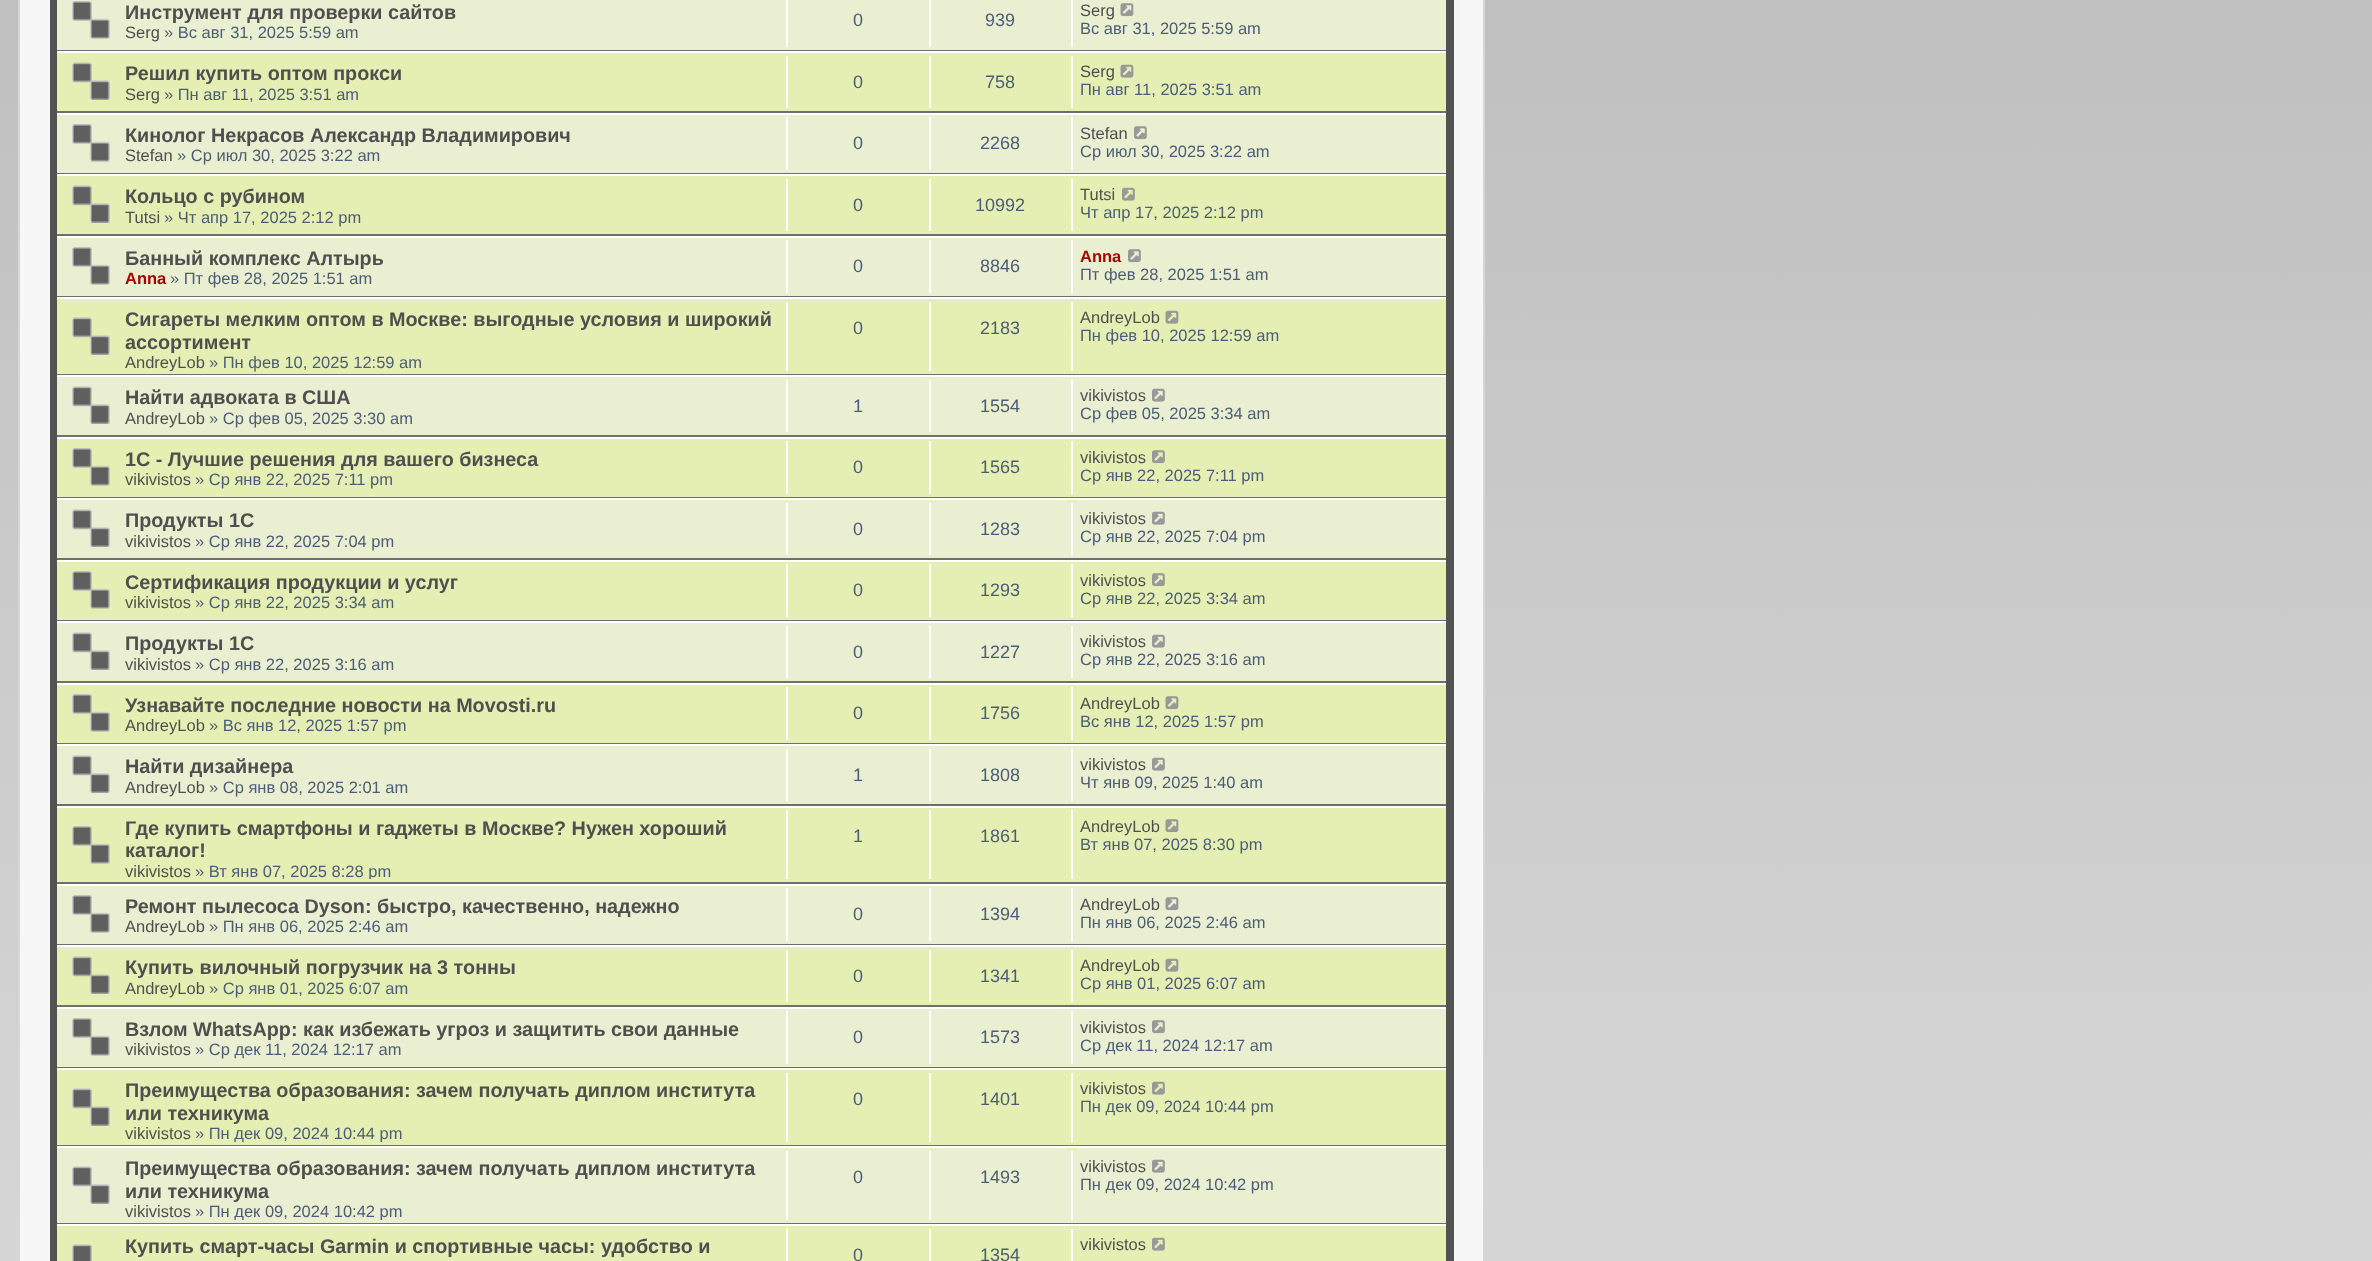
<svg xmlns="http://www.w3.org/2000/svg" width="2372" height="1261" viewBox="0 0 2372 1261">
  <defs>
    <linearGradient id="g1" gradientUnits="userSpaceOnUse" x1="1186" y1="-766" x2="1187" y2="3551"><stop offset="0" stop-color="#b2b2b2"/><stop offset="1" stop-color="#fff"/></linearGradient>
    <linearGradient id="g2" gradientUnits="userSpaceOnUse" x1="752" y1="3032" x2="752" y2="-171"><stop offset="0" stop-color="#969696"/><stop offset="0.1" stop-color="#525252"/></linearGradient>
    <clipPath id="clip1"><path d="M57 302h1389v69H57z"/></clipPath>
    <clipPath id="clip2"><path d="M57 810h1389v69H57z"/></clipPath>
    <clipPath id="clip3"><path d="M57 1073h1389v69H57z"/></clipPath>
    <clipPath id="clip4"><path d="M57 1151h1389v69H57z"/></clipPath>
  </defs>
  <rect width="100%" height="100%" fill="#fff"/>
  <path d="M0 0h2372v1261H0z" fill="url(#g1)"/>
  <path d="M19 -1h1465v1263H19z" fill="#f7f7f7" stroke="#d6d6d6" stroke-width="2"/>
  <path d="M50 0h1404v1261H50z" fill="url(#g2)"/>
  <path d="M57 0h1389v50H57z" fill="#eaefd1"/>
  <path d="M57 50h1389v1H57z" fill="#6f6f6f"/>
  <image x="72" y="1" width="38" height="38" href="img/1.png"/>
  <path d="M786 0h2v47H786z" fill="#fff"/>
  <path d="M929 0h2v47H929z" fill="#fff"/>
  <path d="M1071 0h2v47H1071z" fill="#fff"/>
  <image x="1120" y="3" width="14" height="14" href="img/2.png"/>
  <path d="M57 53h1389v58H57z" fill="#e5efb3"/>
  <path d="M57 51h1389v2H57z" fill="#fff"/>
  <path d="M57 111h1389v2H57z" fill="#6f6f6f"/>
  <image x="72" y="62" width="38" height="38" href="img/3.png"/>
  <path d="M786 56h2v52H786z" fill="#fff"/>
  <path d="M929 56h2v52H929z" fill="#fff"/>
  <path d="M1071 56h2v52H1071z" fill="#fff"/>
  <image x="1120" y="64" width="14" height="14" href="img/4.png"/>
  <path d="M57 115h1389v58H57z" fill="#eaefd1"/>
  <path d="M57 113h1389v2H57z" fill="#fff"/>
  <path d="M57 173h1389v1H57z" fill="#6f6f6f"/>
  <image x="72" y="124" width="38" height="38" href="img/1.png"/>
  <path d="M786 117h2v53H786z" fill="#fff"/>
  <path d="M929 117h2v53H929z" fill="#fff"/>
  <path d="M1071 117h2v53H1071z" fill="#fff"/>
  <image x="1134" y="126" width="13" height="14" href="img/5.png"/>
  <path d="M57 176h1389v58H57z" fill="#e5efb3"/>
  <path d="M57 174h1389v2H57z" fill="#fff"/>
  <path d="M57 234h1389v2H57z" fill="#6f6f6f"/>
  <image x="72" y="185" width="38" height="38" href="img/3.png"/>
  <path d="M786 179h2v52H786z" fill="#fff"/>
  <path d="M929 179h2v52H929z" fill="#fff"/>
  <path d="M1071 179h2v52H1071z" fill="#fff"/>
  <image x="1122" y="187" width="13" height="14" href="img/6.png"/>
  <path d="M57 238h1389v58H57z" fill="#eaefd1"/>
  <path d="M57 236h1389v2H57z" fill="#fff"/>
  <path d="M57 296h1389v1H57z" fill="#6f6f6f"/>
  <image x="72" y="247" width="38" height="38" href="img/1.png"/>
  <path d="M786 240h2v53H786z" fill="#fff"/>
  <path d="M929 240h2v53H929z" fill="#fff"/>
  <path d="M1071 240h2v53H1071z" fill="#fff"/>
  <image x="1128" y="249" width="13" height="14" href="img/5.png"/>
  <path d="M57 299h1389v75H57z" fill="#e5efb3"/>
  <path d="M57 297h1389v2H57z" fill="#fff"/>
  <path d="M57 374h1389v1H57z" fill="#6f6f6f"/>
  <image x="72" y="317" width="38" height="38" href="img/3.png"/>
  <path d="M786 302h2v69H786z" fill="#fff"/>
  <path d="M929 302h2v69H929z" fill="#fff"/>
  <path d="M1071 302h2v69H1071z" fill="#fff"/>
  <image x="1165" y="310" width="14" height="14" href="img/4.png"/>
  <path d="M57 377h1389v58H57z" fill="#eaefd1"/>
  <path d="M57 375h1389v2H57z" fill="#fff"/>
  <path d="M57 435h1389v2H57z" fill="#6f6f6f"/>
  <image x="72" y="386" width="38" height="38" href="img/7.png"/>
  <path d="M786 380h2v52H786z" fill="#fff"/>
  <path d="M929 380h2v52H929z" fill="#fff"/>
  <path d="M1071 380h2v52H1071z" fill="#fff"/>
  <image x="1152" y="388" width="13" height="14" href="img/8.png"/>
  <path d="M57 439h1389v58H57z" fill="#e5efb3"/>
  <path d="M57 437h1389v2H57z" fill="#fff"/>
  <path d="M57 497h1389v1H57z" fill="#6f6f6f"/>
  <image x="72" y="448" width="38" height="38" href="img/9.png"/>
  <path d="M786 441h2v53H786z" fill="#fff"/>
  <path d="M929 441h2v53H929z" fill="#fff"/>
  <path d="M1071 441h2v53H1071z" fill="#fff"/>
  <image x="1152" y="450" width="13" height="14" href="img/10.png"/>
  <path d="M57 500h1389v58H57z" fill="#eaefd1"/>
  <path d="M57 498h1389v2H57z" fill="#fff"/>
  <path d="M57 558h1389v2H57z" fill="#6f6f6f"/>
  <image x="72" y="509" width="38" height="38" href="img/7.png"/>
  <path d="M786 503h2v52H786z" fill="#fff"/>
  <path d="M929 503h2v52H929z" fill="#fff"/>
  <path d="M1071 503h2v52H1071z" fill="#fff"/>
  <image x="1152" y="511" width="13" height="14" href="img/8.png"/>
  <path d="M57 562h1389v58H57z" fill="#e5efb3"/>
  <path d="M57 560h1389v2H57z" fill="#fff"/>
  <path d="M57 620h1389v1H57z" fill="#6f6f6f"/>
  <image x="72" y="571" width="38" height="38" href="img/9.png"/>
  <path d="M786 564h2v53H786z" fill="#fff"/>
  <path d="M929 564h2v53H929z" fill="#fff"/>
  <path d="M1071 564h2v53H1071z" fill="#fff"/>
  <image x="1152" y="573" width="13" height="14" href="img/10.png"/>
  <path d="M57 623h1389v58H57z" fill="#eaefd1"/>
  <path d="M57 621h1389v2H57z" fill="#fff"/>
  <path d="M57 681h1389v2H57z" fill="#6f6f6f"/>
  <image x="72" y="632" width="38" height="38" href="img/7.png"/>
  <path d="M786 626h2v52H786z" fill="#fff"/>
  <path d="M929 626h2v52H929z" fill="#fff"/>
  <path d="M1071 626h2v52H1071z" fill="#fff"/>
  <image x="1152" y="634" width="13" height="14" href="img/8.png"/>
  <path d="M57 685h1389v58H57z" fill="#e5efb3"/>
  <path d="M57 683h1389v2H57z" fill="#fff"/>
  <path d="M57 743h1389v1H57z" fill="#6f6f6f"/>
  <image x="72" y="694" width="38" height="38" href="img/9.png"/>
  <path d="M786 687h2v53H786z" fill="#fff"/>
  <path d="M929 687h2v53H929z" fill="#fff"/>
  <path d="M1071 687h2v53H1071z" fill="#fff"/>
  <image x="1165" y="696" width="14" height="14" href="img/11.png"/>
  <path d="M57 746h1389v58H57z" fill="#eaefd1"/>
  <path d="M57 744h1389v2H57z" fill="#fff"/>
  <path d="M57 804h1389v2H57z" fill="#6f6f6f"/>
  <image x="72" y="755" width="38" height="38" href="img/7.png"/>
  <path d="M786 749h2v52H786z" fill="#fff"/>
  <path d="M929 749h2v52H929z" fill="#fff"/>
  <path d="M1071 749h2v52H1071z" fill="#fff"/>
  <image x="1152" y="757" width="13" height="14" href="img/8.png"/>
  <path d="M57 808h1389v74H57z" fill="#e5efb3"/>
  <path d="M57 806h1389v2H57z" fill="#fff"/>
  <path d="M57 882h1389v2H57z" fill="#6f6f6f"/>
  <image x="72" y="826" width="38" height="38" href="img/9.png"/>
  <path d="M786 810h2v69H786z" fill="#fff"/>
  <path d="M929 810h2v69H929z" fill="#fff"/>
  <path d="M1071 810h2v69H1071z" fill="#fff"/>
  <image x="1165" y="819" width="14" height="14" href="img/11.png"/>
  <path d="M57 886h1389v58H57z" fill="#eaefd1"/>
  <path d="M57 884h1389v2H57z" fill="#fff"/>
  <path d="M57 944h1389v1H57z" fill="#6f6f6f"/>
  <image x="72" y="895" width="38" height="38" href="img/1.png"/>
  <path d="M786 888h2v53H786z" fill="#fff"/>
  <path d="M929 888h2v53H929z" fill="#fff"/>
  <path d="M1071 888h2v53H1071z" fill="#fff"/>
  <image x="1165" y="897" width="14" height="14" href="img/2.png"/>
  <path d="M57 947h1389v58H57z" fill="#e5efb3"/>
  <path d="M57 945h1389v2H57z" fill="#fff"/>
  <path d="M57 1005h1389v2H57z" fill="#6f6f6f"/>
  <image x="72" y="956" width="38" height="38" href="img/3.png"/>
  <path d="M786 950h2v52H786z" fill="#fff"/>
  <path d="M929 950h2v52H929z" fill="#fff"/>
  <path d="M1071 950h2v52H1071z" fill="#fff"/>
  <image x="1165" y="958" width="14" height="14" href="img/4.png"/>
  <path d="M57 1009h1389v58H57z" fill="#eaefd1"/>
  <path d="M57 1007h1389v2H57z" fill="#fff"/>
  <path d="M57 1067h1389v1H57z" fill="#6f6f6f"/>
  <image x="72" y="1018" width="38" height="38" href="img/1.png"/>
  <path d="M786 1011h2v53H786z" fill="#fff"/>
  <path d="M929 1011h2v53H929z" fill="#fff"/>
  <path d="M1071 1011h2v53H1071z" fill="#fff"/>
  <image x="1152" y="1020" width="13" height="14" href="img/5.png"/>
  <path d="M57 1070h1389v75H57z" fill="#e5efb3"/>
  <path d="M57 1068h1389v2H57z" fill="#fff"/>
  <path d="M57 1145h1389v1H57z" fill="#6f6f6f"/>
  <image x="72" y="1088" width="38" height="38" href="img/3.png"/>
  <path d="M786 1073h2v69H786z" fill="#fff"/>
  <path d="M929 1073h2v69H929z" fill="#fff"/>
  <path d="M1071 1073h2v69H1071z" fill="#fff"/>
  <image x="1152" y="1081" width="13" height="14" href="img/6.png"/>
  <path d="M57 1148h1389v75H57z" fill="#eaefd1"/>
  <path d="M57 1146h1389v2H57z" fill="#fff"/>
  <path d="M57 1223h1389v1H57z" fill="#6f6f6f"/>
  <image x="72" y="1166" width="38" height="38" href="img/7.png"/>
  <path d="M786 1151h2v69H786z" fill="#fff"/>
  <path d="M929 1151h2v69H929z" fill="#fff"/>
  <path d="M1071 1151h2v69H1071z" fill="#fff"/>
  <image x="1152" y="1159" width="13" height="14" href="img/8.png"/>
  <path d="M57 1226h1389v35H57z" fill="#e5efb3"/>
  <path d="M57 1224h1389v2H57z" fill="#fff"/>
  <image x="72" y="1244" width="20" height="17" href="img/12.png"/>
  <path d="M1071 1229h2v32H1071z" fill="#fff"/>
  <image x="1152" y="1237" width="13" height="14" href="img/6.png"/>
  <path d="M786 1229h2v32H786z" fill="#fff"/>
  <path d="M929 1229h2v32H929z" fill="#fff"/>
  <text x="125" y="19" font-family="Liberation Sans" font-size="19.8" font-weight="bold" fill="#4f4f4f">Инструмент для проверки сайтов</text>
  <text x="125" y="38" font-family="Liberation Sans" font-size="16.5" fill="#4f4f4f">Serg</text>
  <text x="164" y="38" font-family="Liberation Sans" font-size="16.5" fill="#4c5d77">» Вс авг 31, 2025 5:59 am</text>
  <g font-family="Liberation Sans" font-size="18" fill="#4c5d77">
    <text x="853" y="26">0</text>
    <text x="985" y="26">939</text>
  </g>
  <text x="1080" y="16" font-family="Liberation Sans" font-size="16.5" fill="#4f4f4f">Serg</text>
  <text x="1080" y="34" font-family="Liberation Sans" font-size="16.5" fill="#4c5d77">Вс авг 31, 2025 5:59 am</text>
  <text x="125" y="80" font-family="Liberation Sans" font-size="19.8" font-weight="bold" fill="#4f4f4f">Решил купить оптом прокси</text>
  <text x="125" y="100" font-family="Liberation Sans" font-size="16.5" fill="#4f4f4f">Serg</text>
  <text x="164" y="100" font-family="Liberation Sans" font-size="16.5" fill="#4c5d77">» Пн авг 11, 2025 3:51 am</text>
  <g font-family="Liberation Sans" font-size="18" fill="#4c5d77">
    <text x="853" y="88">0</text>
    <text x="985" y="88">758</text>
  </g>
  <text x="1080" y="77" font-family="Liberation Sans" font-size="16.5" fill="#4f4f4f">Serg</text>
  <text x="1080" y="95" font-family="Liberation Sans" font-size="16.5" fill="#4c5d77">Пн авг 11, 2025 3:51 am</text>
  <text x="125" y="142" font-family="Liberation Sans" font-size="19.8" font-weight="bold" fill="#4f4f4f">Кинолог Некрасов Александр Владимирович</text>
  <text x="125" y="161" font-family="Liberation Sans" font-size="16.5" fill="#4f4f4f">Stefan</text>
  <text x="177" y="161" font-family="Liberation Sans" font-size="16.5" fill="#4c5d77">» Ср июл 30, 2025 3:22 am</text>
  <g font-family="Liberation Sans" font-size="18" fill="#4c5d77">
    <text x="853" y="149">0</text>
    <text x="980" y="149">2268</text>
  </g>
  <text x="1080" y="139" font-family="Liberation Sans" font-size="16.5" fill="#4f4f4f">Stefan</text>
  <text x="1080" y="157" font-family="Liberation Sans" font-size="16.5" fill="#4c5d77">Ср июл 30, 2025 3:22 am</text>
  <text x="125" y="203" font-family="Liberation Sans" font-size="19.8" font-weight="bold" fill="#4f4f4f">Кольцо с рубином</text>
  <text x="125" y="223" font-family="Liberation Sans" font-size="16.5" fill="#4f4f4f">Tutsi</text>
  <text x="164" y="223" font-family="Liberation Sans" font-size="16.5" fill="#4c5d77">» Чт апр 17, 2025 2:12 pm</text>
  <g font-family="Liberation Sans" font-size="18" fill="#4c5d77">
    <text x="853" y="211">0</text>
    <text x="975" y="211">10992</text>
  </g>
  <text x="1080" y="200" font-family="Liberation Sans" font-size="16.5" fill="#4f4f4f">Tutsi</text>
  <text x="1080" y="218" font-family="Liberation Sans" font-size="16.5" fill="#4c5d77">Чт апр 17, 2025 2:12 pm</text>
  <text x="125" y="265" font-family="Liberation Sans" font-size="19.8" font-weight="bold" fill="#4f4f4f">Банный комплекс Алтырь</text>
  <text x="125" y="284" font-family="Liberation Sans" font-size="16.5" font-weight="bold" fill="#a00">Anna</text>
  <text x="170" y="284" font-family="Liberation Sans" font-size="16.5" fill="#4c5d77">» Пт фев 28, 2025 1:51 am</text>
  <g font-family="Liberation Sans" font-size="18" fill="#4c5d77">
    <text x="853" y="272">0</text>
    <text x="980" y="272">8846</text>
  </g>
  <text x="1080" y="262" font-family="Liberation Sans" font-size="16.5" font-weight="bold" fill="#a00">Anna</text>
  <text x="1080" y="280" font-family="Liberation Sans" font-size="16.5" fill="#4c5d77">Пт фев 28, 2025 1:51 am</text>
  <g font-family="Liberation Sans" font-size="19.8" font-weight="bold" fill="#4f4f4f">
    <text x="125" y="326">Сигареты мелким оптом в Москве: выгодные условия и широкий</text>
    <text x="125" y="349">ассортимент</text>
  </g>
  <g clip-path="url(#clip1)">
    <text x="125" y="368" font-family="Liberation Sans" font-size="16.5" fill="#4f4f4f">AndreyLob</text>
  </g>
  <text x="209" y="368" font-family="Liberation Sans" font-size="16.5" fill="#4c5d77">» Пн фев 10, 2025 12:59 am</text>
  <g font-family="Liberation Sans" font-size="18" fill="#4c5d77">
    <text x="853" y="334">0</text>
    <text x="980" y="334">2183</text>
  </g>
  <text x="1080" y="323" font-family="Liberation Sans" font-size="16.5" fill="#4f4f4f">AndreyLob</text>
  <text x="1080" y="341" font-family="Liberation Sans" font-size="16.5" fill="#4c5d77">Пн фев 10, 2025 12:59 am</text>
  <text x="125" y="404" font-family="Liberation Sans" font-size="19.8" font-weight="bold" fill="#4f4f4f">Найти адвоката в США</text>
  <text x="125" y="424" font-family="Liberation Sans" font-size="16.5" fill="#4f4f4f">AndreyLob</text>
  <text x="209" y="424" font-family="Liberation Sans" font-size="16.5" fill="#4c5d77">» Ср фев 05, 2025 3:30 am</text>
  <g font-family="Liberation Sans" font-size="18" fill="#4c5d77">
    <text x="853" y="412">1</text>
    <text x="980" y="412">1554</text>
  </g>
  <text x="1080" y="401" font-family="Liberation Sans" font-size="16.5" fill="#4f4f4f">vikivistos</text>
  <text x="1080" y="419" font-family="Liberation Sans" font-size="16.5" fill="#4c5d77">Ср фев 05, 2025 3:34 am</text>
  <text x="125" y="466" font-family="Liberation Sans" font-size="19.8" font-weight="bold" fill="#4f4f4f">1С - Лучшие решения для вашего бизнеса</text>
  <text x="125" y="485" font-family="Liberation Sans" font-size="16.5" fill="#4f4f4f">vikivistos</text>
  <text x="195" y="485" font-family="Liberation Sans" font-size="16.5" fill="#4c5d77">» Ср янв 22, 2025 7:11 pm</text>
  <g font-family="Liberation Sans" font-size="18" fill="#4c5d77">
    <text x="853" y="473">0</text>
    <text x="980" y="473">1565</text>
  </g>
  <text x="1080" y="463" font-family="Liberation Sans" font-size="16.5" fill="#4f4f4f">vikivistos</text>
  <text x="1080" y="481" font-family="Liberation Sans" font-size="16.5" fill="#4c5d77">Ср янв 22, 2025 7:11 pm</text>
  <text x="125" y="527" font-family="Liberation Sans" font-size="19.8" font-weight="bold" fill="#4f4f4f">Продукты 1C</text>
  <text x="125" y="547" font-family="Liberation Sans" font-size="16.5" fill="#4f4f4f">vikivistos</text>
  <text x="195" y="547" font-family="Liberation Sans" font-size="16.5" fill="#4c5d77">» Ср янв 22, 2025 7:04 pm</text>
  <g font-family="Liberation Sans" font-size="18" fill="#4c5d77">
    <text x="853" y="535">0</text>
    <text x="980" y="535">1283</text>
  </g>
  <text x="1080" y="524" font-family="Liberation Sans" font-size="16.5" fill="#4f4f4f">vikivistos</text>
  <text x="1080" y="542" font-family="Liberation Sans" font-size="16.5" fill="#4c5d77">Ср янв 22, 2025 7:04 pm</text>
  <text x="125" y="589" font-family="Liberation Sans" font-size="19.8" font-weight="bold" fill="#4f4f4f">Сертификация продукции и услуг</text>
  <text x="125" y="608" font-family="Liberation Sans" font-size="16.5" fill="#4f4f4f">vikivistos</text>
  <text x="195" y="608" font-family="Liberation Sans" font-size="16.5" fill="#4c5d77">» Ср янв 22, 2025 3:34 am</text>
  <g font-family="Liberation Sans" font-size="18" fill="#4c5d77">
    <text x="853" y="596">0</text>
    <text x="980" y="596">1293</text>
  </g>
  <text x="1080" y="586" font-family="Liberation Sans" font-size="16.5" fill="#4f4f4f">vikivistos</text>
  <text x="1080" y="604" font-family="Liberation Sans" font-size="16.5" fill="#4c5d77">Ср янв 22, 2025 3:34 am</text>
  <text x="125" y="650" font-family="Liberation Sans" font-size="19.8" font-weight="bold" fill="#4f4f4f">Продукты 1C</text>
  <text x="125" y="670" font-family="Liberation Sans" font-size="16.5" fill="#4f4f4f">vikivistos</text>
  <text x="195" y="670" font-family="Liberation Sans" font-size="16.5" fill="#4c5d77">» Ср янв 22, 2025 3:16 am</text>
  <g font-family="Liberation Sans" font-size="18" fill="#4c5d77">
    <text x="853" y="658">0</text>
    <text x="980" y="658">1227</text>
  </g>
  <text x="1080" y="647" font-family="Liberation Sans" font-size="16.5" fill="#4f4f4f">vikivistos</text>
  <text x="1080" y="665" font-family="Liberation Sans" font-size="16.5" fill="#4c5d77">Ср янв 22, 2025 3:16 am</text>
  <text x="125" y="712" font-family="Liberation Sans" font-size="19.8" font-weight="bold" fill="#4f4f4f">Узнавайте последние новости на Movosti.ru</text>
  <text x="125" y="731" font-family="Liberation Sans" font-size="16.5" fill="#4f4f4f">AndreyLob</text>
  <text x="209" y="731" font-family="Liberation Sans" font-size="16.5" fill="#4c5d77">» Вс янв 12, 2025 1:57 pm</text>
  <g font-family="Liberation Sans" font-size="18" fill="#4c5d77">
    <text x="853" y="719">0</text>
    <text x="980" y="719">1756</text>
  </g>
  <text x="1080" y="709" font-family="Liberation Sans" font-size="16.5" fill="#4f4f4f">AndreyLob</text>
  <text x="1080" y="727" font-family="Liberation Sans" font-size="16.5" fill="#4c5d77">Вс янв 12, 2025 1:57 pm</text>
  <text x="125" y="773" font-family="Liberation Sans" font-size="19.8" font-weight="bold" fill="#4f4f4f">Найти дизайнера</text>
  <text x="125" y="793" font-family="Liberation Sans" font-size="16.5" fill="#4f4f4f">AndreyLob</text>
  <text x="209" y="793" font-family="Liberation Sans" font-size="16.5" fill="#4c5d77">» Ср янв 08, 2025 2:01 am</text>
  <g font-family="Liberation Sans" font-size="18" fill="#4c5d77">
    <text x="853" y="781">1</text>
    <text x="980" y="781">1808</text>
  </g>
  <text x="1080" y="770" font-family="Liberation Sans" font-size="16.5" fill="#4f4f4f">vikivistos</text>
  <text x="1080" y="788" font-family="Liberation Sans" font-size="16.5" fill="#4c5d77">Чт янв 09, 2025 1:40 am</text>
  <g font-family="Liberation Sans" font-size="19.8" font-weight="bold" fill="#4f4f4f">
    <text x="125" y="835">Где купить смартфоны и гаджеты в Москве? Нужен хороший</text>
    <text x="125" y="857">каталог!</text>
  </g>
  <text x="125" y="877" font-family="Liberation Sans" font-size="16.5" fill="#4f4f4f">vikivistos</text>
  <g clip-path="url(#clip2)">
    <text x="195" y="877" font-family="Liberation Sans" font-size="16.5" fill="#4c5d77">» Вт янв 07, 2025 8:28 pm</text>
  </g>
  <g font-family="Liberation Sans" font-size="18" fill="#4c5d77">
    <text x="853" y="842">1</text>
    <text x="980" y="842">1861</text>
  </g>
  <text x="1080" y="832" font-family="Liberation Sans" font-size="16.5" fill="#4f4f4f">AndreyLob</text>
  <text x="1080" y="850" font-family="Liberation Sans" font-size="16.5" fill="#4c5d77">Вт янв 07, 2025 8:30 pm</text>
  <text x="125" y="913" font-family="Liberation Sans" font-size="19.8" font-weight="bold" fill="#4f4f4f">Ремонт пылесоса Dyson: быстро, качественно, надежно</text>
  <text x="125" y="932" font-family="Liberation Sans" font-size="16.5" fill="#4f4f4f">AndreyLob</text>
  <text x="209" y="932" font-family="Liberation Sans" font-size="16.5" fill="#4c5d77">» Пн янв 06, 2025 2:46 am</text>
  <g font-family="Liberation Sans" font-size="18" fill="#4c5d77">
    <text x="853" y="920">0</text>
    <text x="980" y="920">1394</text>
  </g>
  <text x="1080" y="910" font-family="Liberation Sans" font-size="16.5" fill="#4f4f4f">AndreyLob</text>
  <text x="1080" y="928" font-family="Liberation Sans" font-size="16.5" fill="#4c5d77">Пн янв 06, 2025 2:46 am</text>
  <text x="125" y="974" font-family="Liberation Sans" font-size="19.8" font-weight="bold" fill="#4f4f4f">Купить вилочный погрузчик на 3 тонны</text>
  <text x="125" y="994" font-family="Liberation Sans" font-size="16.5" fill="#4f4f4f">AndreyLob</text>
  <text x="209" y="994" font-family="Liberation Sans" font-size="16.5" fill="#4c5d77">» Ср янв 01, 2025 6:07 am</text>
  <g font-family="Liberation Sans" font-size="18" fill="#4c5d77">
    <text x="853" y="982">0</text>
    <text x="980" y="982">1341</text>
  </g>
  <text x="1080" y="971" font-family="Liberation Sans" font-size="16.5" fill="#4f4f4f">AndreyLob</text>
  <text x="1080" y="989" font-family="Liberation Sans" font-size="16.5" fill="#4c5d77">Ср янв 01, 2025 6:07 am</text>
  <text x="125" y="1036" font-family="Liberation Sans" font-size="19.8" font-weight="bold" fill="#4f4f4f">Взлом WhatsApp: как избежать угроз и защитить свои данные</text>
  <text x="125" y="1055" font-family="Liberation Sans" font-size="16.5" fill="#4f4f4f">vikivistos</text>
  <text x="195" y="1055" font-family="Liberation Sans" font-size="16.5" fill="#4c5d77">» Ср дек 11, 2024 12:17 am</text>
  <g font-family="Liberation Sans" font-size="18" fill="#4c5d77">
    <text x="853" y="1043">0</text>
    <text x="980" y="1043">1573</text>
  </g>
  <text x="1080" y="1033" font-family="Liberation Sans" font-size="16.5" fill="#4f4f4f">vikivistos</text>
  <text x="1080" y="1051" font-family="Liberation Sans" font-size="16.5" fill="#4c5d77">Ср дек 11, 2024 12:17 am</text>
  <g font-family="Liberation Sans" font-size="19.8" font-weight="bold" fill="#4f4f4f">
    <text x="125" y="1097">Преимущества образования: зачем получать диплом института</text>
    <text x="125" y="1120">или техникума</text>
  </g>
  <text x="125" y="1139" font-family="Liberation Sans" font-size="16.5" fill="#4f4f4f">vikivistos</text>
  <g clip-path="url(#clip3)">
    <text x="195" y="1139" font-family="Liberation Sans" font-size="16.5" fill="#4c5d77">» Пн дек 09, 2024 10:44 pm</text>
  </g>
  <g font-family="Liberation Sans" font-size="18" fill="#4c5d77">
    <text x="853" y="1105">0</text>
    <text x="980" y="1105">1401</text>
  </g>
  <text x="1080" y="1094" font-family="Liberation Sans" font-size="16.5" fill="#4f4f4f">vikivistos</text>
  <text x="1080" y="1112" font-family="Liberation Sans" font-size="16.5" fill="#4c5d77">Пн дек 09, 2024 10:44 pm</text>
  <g font-family="Liberation Sans" font-size="19.8" font-weight="bold" fill="#4f4f4f">
    <text x="125" y="1175">Преимущества образования: зачем получать диплом института</text>
    <text x="125" y="1198">или техникума</text>
  </g>
  <text x="125" y="1217" font-family="Liberation Sans" font-size="16.5" fill="#4f4f4f">vikivistos</text>
  <g clip-path="url(#clip4)">
    <text x="195" y="1217" font-family="Liberation Sans" font-size="16.5" fill="#4c5d77">» Пн дек 09, 2024 10:42 pm</text>
  </g>
  <g font-family="Liberation Sans" font-size="18" fill="#4c5d77">
    <text x="853" y="1183">0</text>
    <text x="980" y="1183">1493</text>
  </g>
  <text x="1080" y="1172" font-family="Liberation Sans" font-size="16.5" fill="#4f4f4f">vikivistos</text>
  <text x="1080" y="1190" font-family="Liberation Sans" font-size="16.5" fill="#4c5d77">Пн дек 09, 2024 10:42 pm</text>
  <text x="125" y="1253" font-family="Liberation Sans" font-size="19.8" font-weight="bold" fill="#4f4f4f">Купить смарт-часы Garmin и спортивные часы: удобство и</text>
  <text x="1080" y="1250" font-family="Liberation Sans" font-size="16.5" fill="#4f4f4f">vikivistos</text>
  <g font-family="Liberation Sans" font-size="18" fill="#4c5d77">
    <text x="853" y="1261">0</text>
    <text x="980" y="1261">1354</text>
  </g>
</svg>
